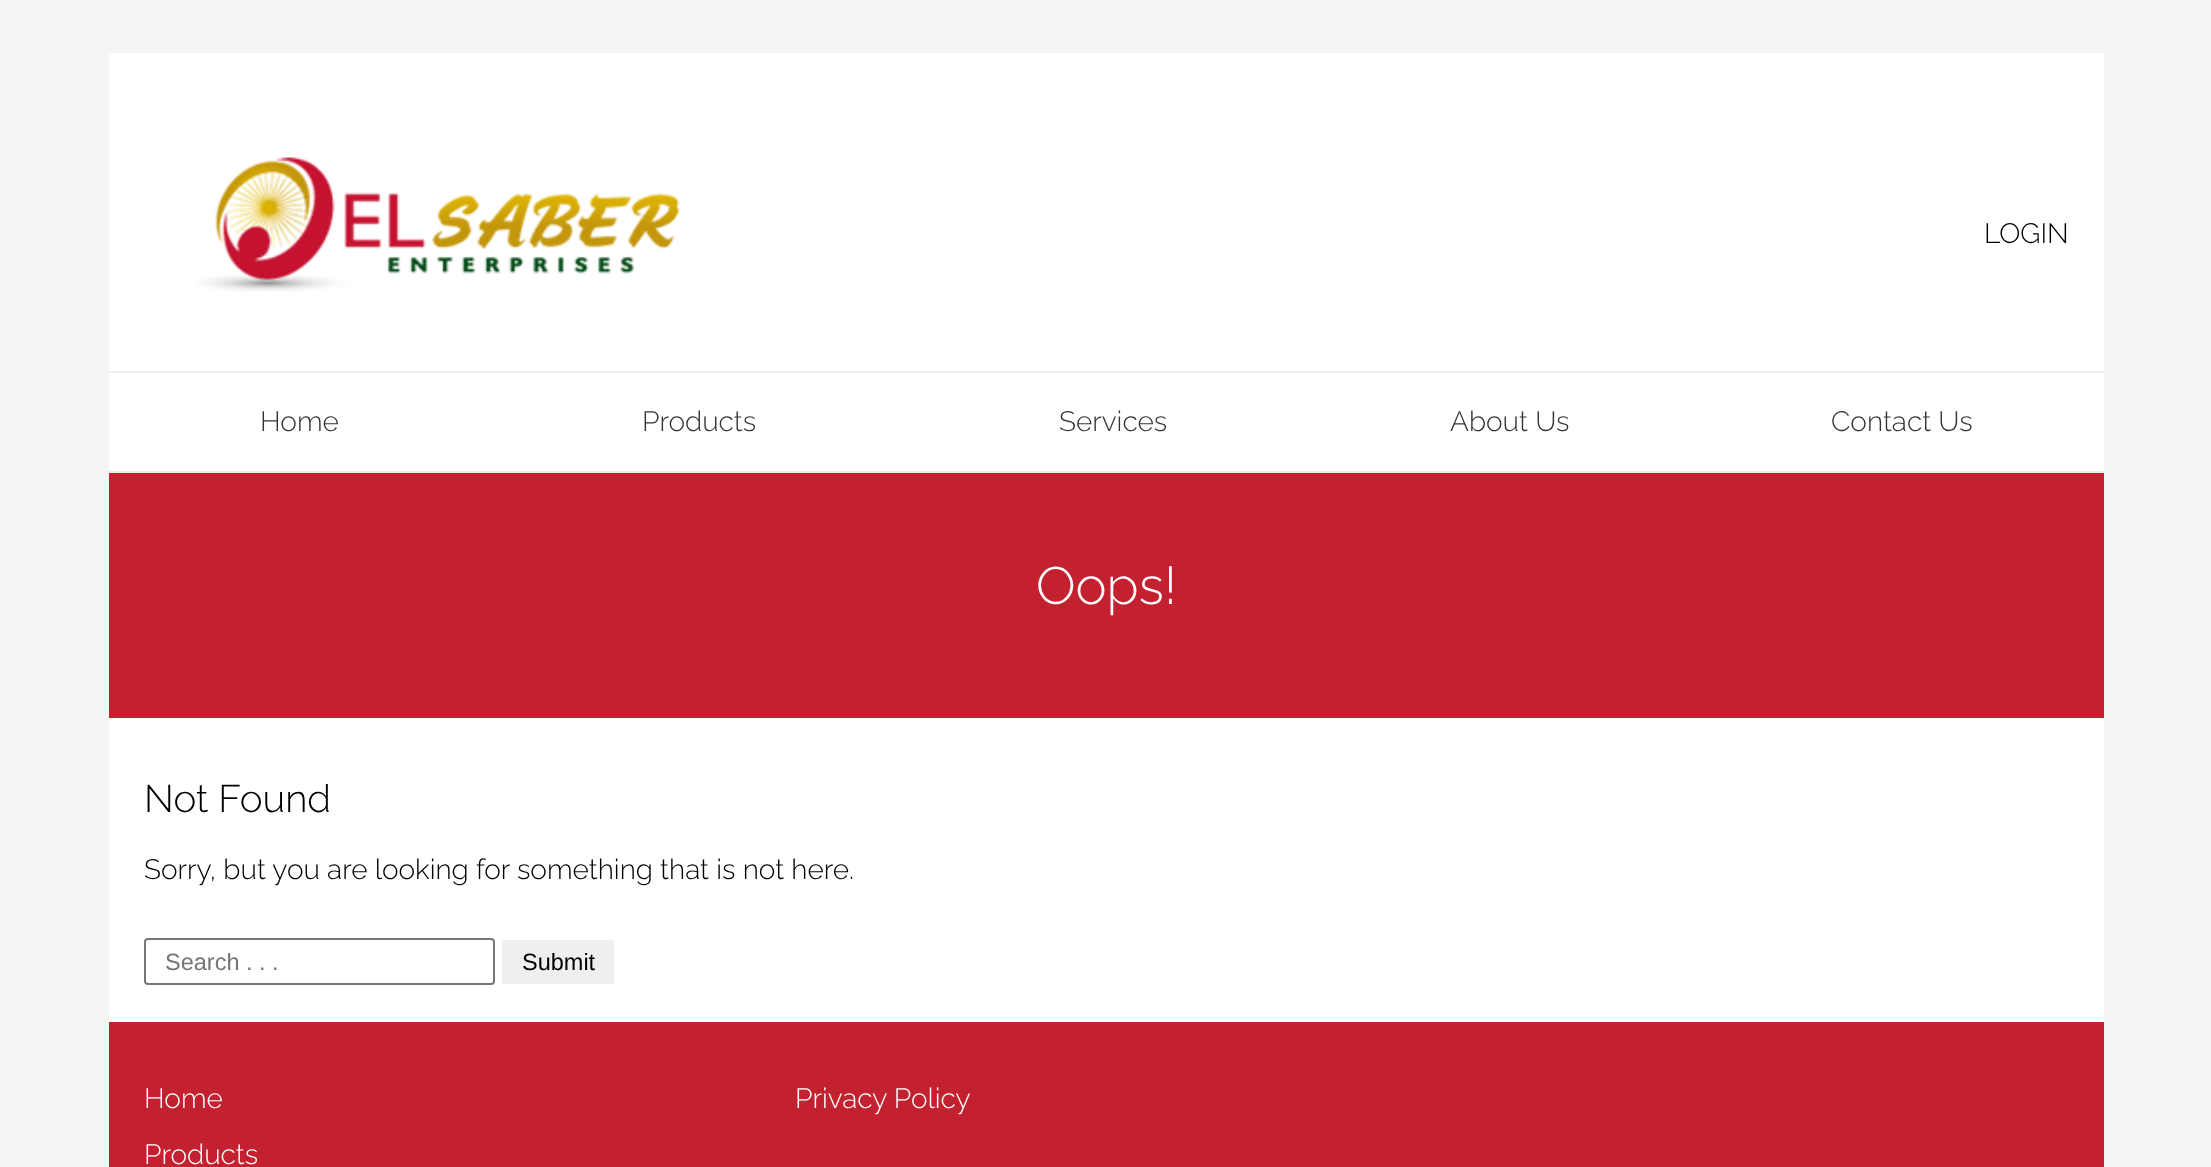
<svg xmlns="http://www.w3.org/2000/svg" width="2211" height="1167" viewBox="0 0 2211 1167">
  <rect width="100%" height="100%" fill="#f4f4f4"/>
  <path d="M109 53h1995v318H109z" fill="#fff"/>
  <image x="195" y="157" width="485" height="135" href="img/1.png"/>
  <path d="M109 373h1995v98H109z" fill="#fff"/>
  <path d="M109 371h1995v2H109z" fill="#ededed"/>
  <path d="M109 471h1995v2H109z" fill="#ededed"/>
  <path d="M109 473h1995v245H109z" fill="#c42130"/>
  <path d="M109 718h1995v304H109z" fill="#fff"/>
  <rect x="145" y="939" width="349" height="45" rx="3" fill="none" stroke="#767676" stroke-width="2"/>
  <path d="M502 940h112v44H502z" fill="#efefef"/>
  <path d="M109 1022h1995v145H109z" fill="#c42130"/>
  <text x="1984" y="243" font-family="Raleway" font-size="28" font-weight="300" fill="#000">LOGIN</text>
  <g font-family="Raleway" font-size="28" font-weight="300" fill="#333">
    <text x="260" y="431">Home</text>
    <text x="642" y="431">Products</text>
    <text x="1059" y="431">Services</text>
    <text x="1450" y="431">About Us</text>
    <text x="1831" y="431">Contact Us</text>
  </g>
  <text x="1036" y="604" font-family="Raleway" font-size="52.5" font-weight="300" fill="#fff">Oops!</text>
  <text x="144" y="812" font-family="Raleway" font-size="38.5" font-weight="300" fill="#000">Not Found</text>
  <text x="144" y="879" font-family="Raleway" font-size="28" font-weight="300" fill="#000">Sorry, but you are looking for something that is not here.</text>
  <text x="165" y="970" font-family="Liberation Sans" font-size="23.5" fill="#757575">Search . . .</text>
  <text x="522" y="970" font-family="Liberation Sans" font-size="23.5" fill="#000">Submit</text>
  <g font-family="Raleway" font-size="28" font-weight="300" fill="#fff">
    <text x="144" y="1108">Home</text>
    <text x="144" y="1164">Products</text>
    <text x="795" y="1108">Privacy Policy</text>
  </g>
</svg>
